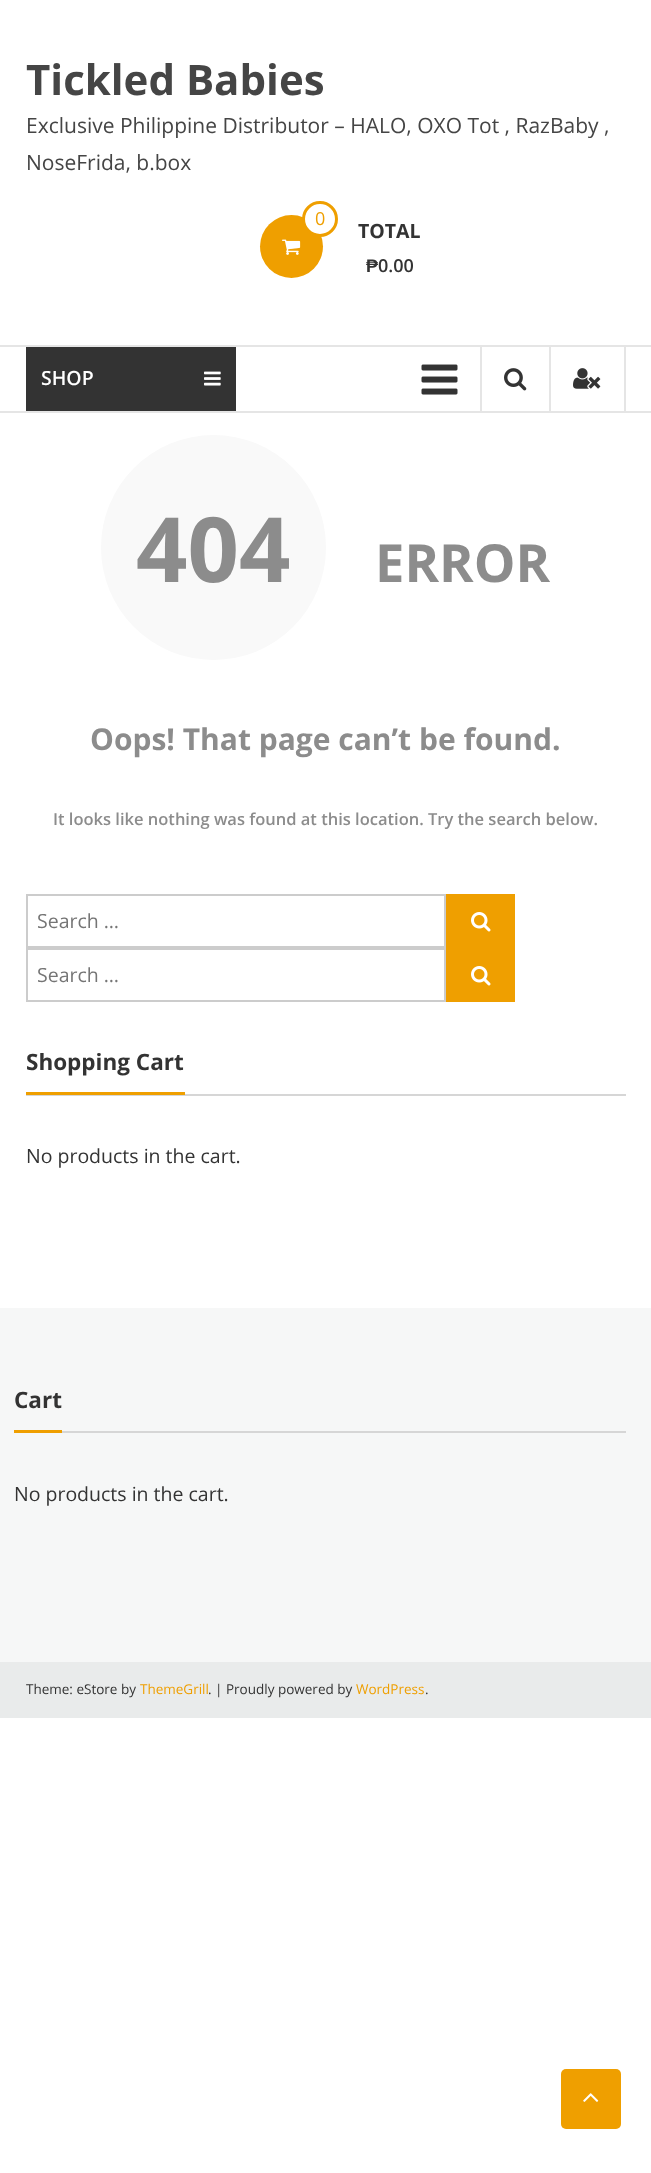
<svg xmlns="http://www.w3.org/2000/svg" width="651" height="2173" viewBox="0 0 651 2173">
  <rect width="100%" height="100%" fill="#fff"/>
  <circle cx="291.5" cy="246.5" r="31.5" fill="#ef9f00"/>
  <circle cx="320" cy="219" r="16.5" fill="#fff" stroke="#ef9f00" stroke-width="3"/>
  <image x="282" y="239" width="19" height="16" href="img/1.png"/>
  <path d="M0 345h651v2H0z" fill="#e5e5e5"/>
  <path d="M0 411h651v2H0z" fill="#e5e5e5"/>
  <path d="M26 347h210v64H26z" fill="#333"/>
  <image x="204" y="371" width="17" height="15" href="img/2.png"/>
  <image x="421" y="364" width="37" height="31" href="img/3.png"/>
  <path d="M480 347h2v64H480z" fill="#e5e5e5"/>
  <image x="504" y="368" width="23" height="23" href="img/4.png"/>
  <path d="M624 347h2v64H624z" fill="#e5e5e5"/>
  <path d="M549 347h2v64H549z" fill="#e5e5e5"/>
  <image x="573" y="368" width="28" height="21" href="img/5.png"/>
  <circle cx="213.5" cy="547.5" r="112.5" fill="#f9f9f9"/>
  <path d="M27 895h418v52H27z" fill="none" stroke="#ccc" stroke-width="2"/>
  <path d="M446 894h69v108H446z" fill="#ef9f00"/>
  <image x="471" y="912" width="20" height="20" href="img/6.png"/>
  <path d="M27 949h418v52H27z" fill="none" stroke="#ccc" stroke-width="2"/>
  <image x="471" y="966" width="20" height="20" href="img/6.png"/>
  <path d="M26 1094h600v2H26z" fill="#d6d6d6"/>
  <path d="M26 1092h159v3H26z" fill="#ef9f00"/>
  <path d="M0 1308h651v354H0z" fill="#f6f7f7"/>
  <path d="M62 1431h564v2H62z" fill="#d6d6d6"/>
  <path d="M14 1430h48v3H14z" fill="#ef9f00"/>
  <path d="M0 1662h651v56H0z" fill="#e9ebeb"/>
  <rect x="561" y="2069" width="60" height="60" rx="5" fill="#ef9f00"/>
  <image x="583" y="2093" width="16" height="9" href="img/7.png"/>
  <text x="26" y="95" font-family="Open Sans" font-size="42" font-weight="bold" fill="#454545">Tickled Babies</text>
  <g font-family="Open Sans" font-size="21" fill="#454545">
    <text x="26" y="133">Exclusive Philippine Distributor – HALO, OXO Tot , RazBaby ,</text>
    <text x="26" y="170">NoseFrida, b.box</text>
  </g>
  <text x="315" y="225" font-family="Open Sans" font-size="18" fill="#ef9f00">0</text>
  <text x="358" y="238" font-family="Open Sans" font-size="19.5" font-weight="bold" fill="#333">TOTAL</text>
  <text x="366" y="272" font-family="Liberation Sans" font-size="18" font-weight="bold" fill="#333">₱</text>
  <text x="378" y="272" font-family="Open Sans" font-size="18" font-weight="600" fill="#333">0.00</text>
  <text x="41" y="385" font-family="Open Sans" font-size="19.5" font-weight="600" fill="#fff">SHOP</text>
  <text x="136" y="582" font-family="Open Sans" font-size="90" font-weight="bold" fill="#8c8c8c">404</text>
  <text x="375" y="582" font-family="Open Sans" font-size="52.5" font-weight="bold" fill="#8c8c8c">ERROR</text>
  <text x="90" y="750" font-family="Open Sans" font-size="30" font-weight="bold" fill="#8c8c8c">Oops! That page can’t be found.</text>
  <text x="53" y="825" font-family="Open Sans" font-size="16.5" font-weight="600" fill="#8c8c8c">It looks like nothing was found at this location. Try the search below.</text>
  <g font-family="Open Sans" font-size="19.5" fill="#757575">
    <text x="37" y="928">Search …</text>
    <text x="37" y="982">Search …</text>
  </g>
  <text x="26" y="1070" font-family="Open Sans" font-size="22.5" font-weight="bold" fill="#333">Shopping Cart</text>
  <text x="26" y="1163" font-family="Open Sans" font-size="19.5" fill="#333">No products in the cart.</text>
  <text x="14" y="1408" font-family="Open Sans" font-size="22.5" font-weight="bold" fill="#333">Cart</text>
  <text x="14" y="1501" font-family="Open Sans" font-size="19.5" fill="#333">No products in the cart.</text>
  <text x="26" y="1694" font-family="Open Sans" font-size="13.5" fill="#333">Theme: eStore by</text>
  <text x="140" y="1694" font-family="Open Sans" font-size="13.5" fill="#ef9f00">ThemeGrill</text>
  <text x="208" y="1694" font-family="Open Sans" font-size="13.5" fill="#333">. | Proudly powered by</text>
  <text x="356" y="1694" font-family="Open Sans" font-size="13.5" fill="#ef9f00">WordPress</text>
  <text x="425" y="1694" font-family="Open Sans" font-size="13.5" fill="#333">.</text>
</svg>
